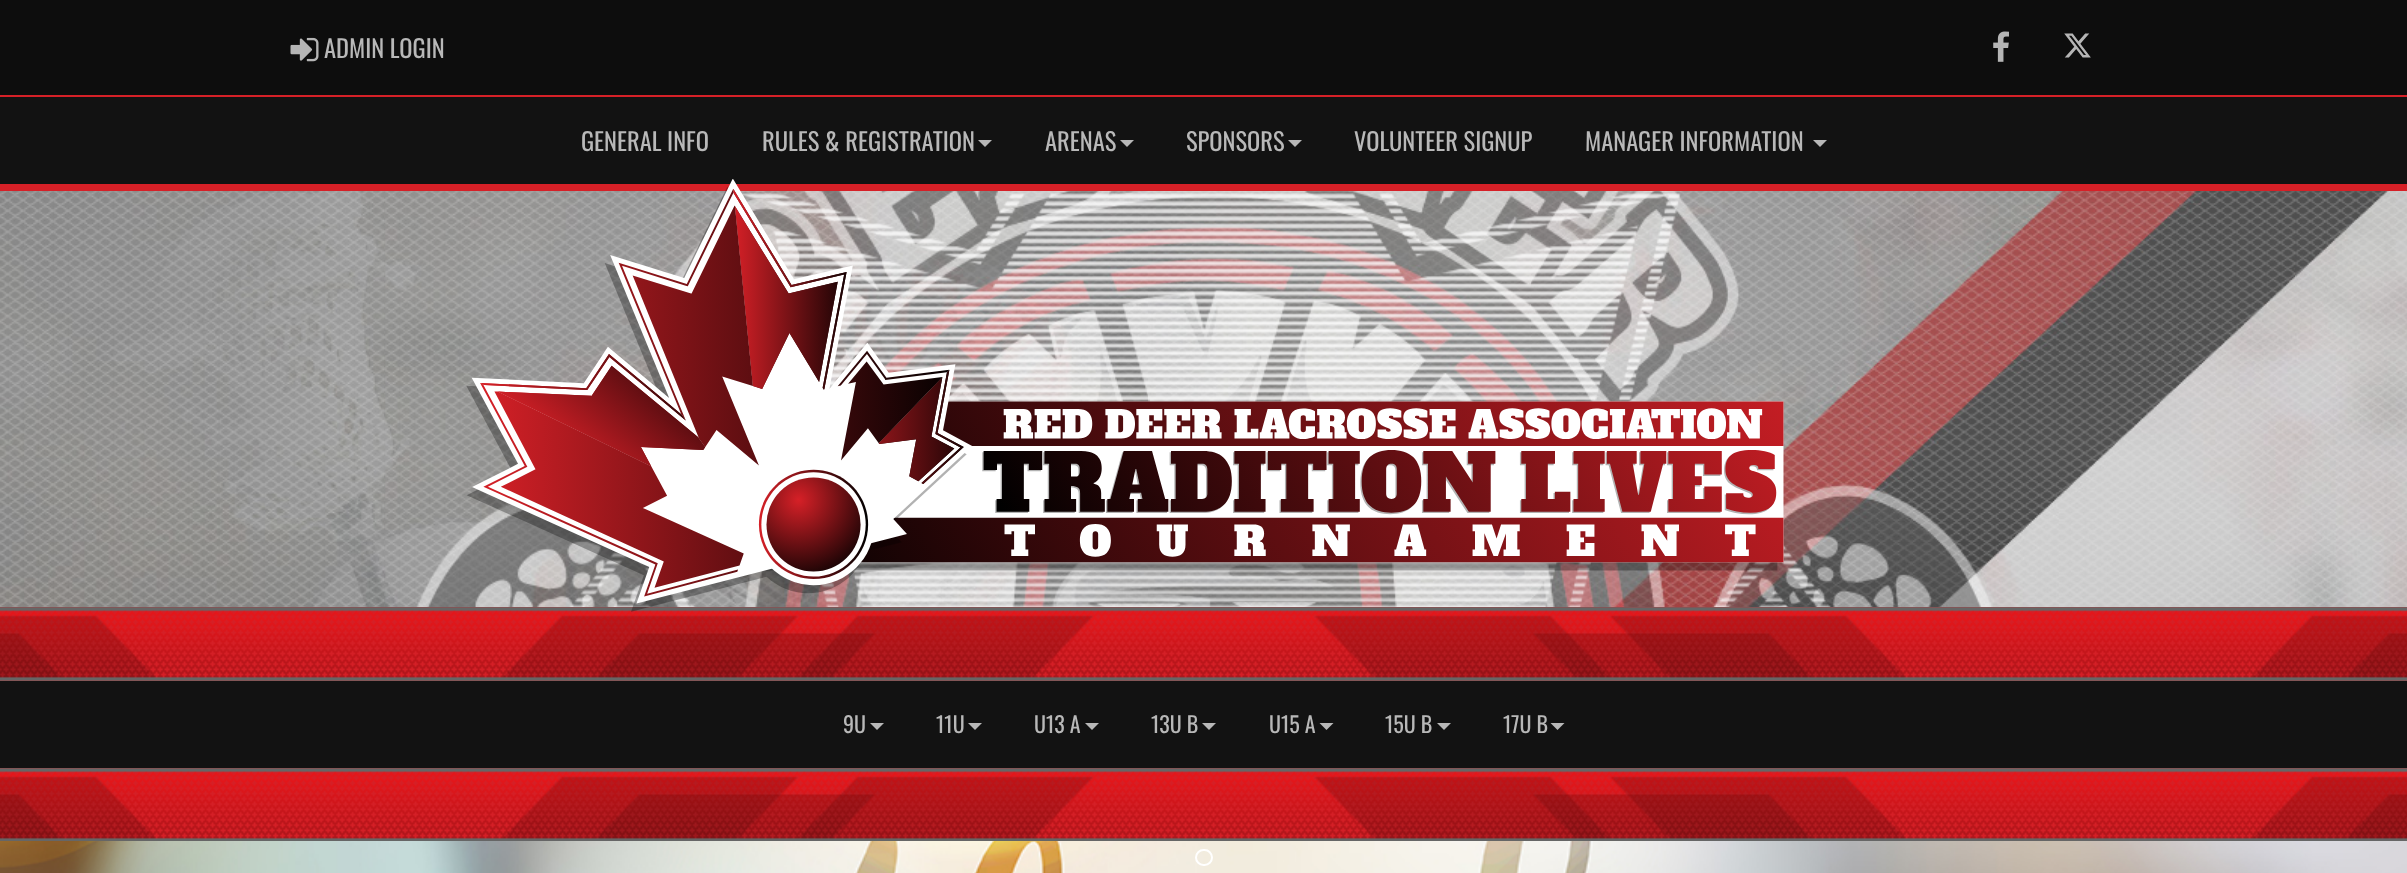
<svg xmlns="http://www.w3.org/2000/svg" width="2407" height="873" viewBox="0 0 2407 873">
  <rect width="100%" height="100%" fill="#fff"/>
  <path d="M0 95h2407v2H0z" fill="#d62027"/>
  <path d="M0 0h2407v95H0z" fill="#0d0d0d"/>
  <image x="290" y="37" width="29" height="25" href="img/1.png"/>
  <image x="1993" y="31" width="16" height="31" href="img/2.png"/>
  <image x="2064" y="33" width="27" height="25" href="img/3.png"/>
  <path d="M0 97h2407v87H0z" fill="#121212"/>
  <path d="M0 184h2407v7H0z" fill="#d62027"/>
  <path d="M978 140H992L985 147Z" fill="#b8b8b8"/>
  <path d="M1120 140H1134L1127 147Z" fill="#b8b8b8"/>
  <path d="M1288 140H1302L1295 147Z" fill="#b8b8b8"/>
  <path d="M1813 140H1827L1820 147Z" fill="#b8b8b8"/>
  <image x="0" y="191" width="2407" height="416" href="img/5.png"/>
  <image x="0" y="191" width="2407" height="416" href="img/6.png"/>
  <path d="M0 607h2407v74H0z" fill="#d62027"/>
  <image x="0" y="607" width="2407" height="74" href="img/7.png"/>
  <image x="466" y="179" width="1318" height="433" href="img/4.png"/>
  <path d="M0 681h2407v87H0z" fill="#121212"/>
  <path d="M870 723H884L877 730Z" fill="#b8b8b8"/>
  <path d="M968 723H982L975 730Z" fill="#b8b8b8"/>
  <path d="M1085 723H1099L1092 730Z" fill="#b8b8b8"/>
  <path d="M1202 723H1216L1209 730Z" fill="#b8b8b8"/>
  <path d="M1319.5 723H1333.5L1326.5 730Z" fill="#b8b8b8"/>
  <path d="M1437 723H1451L1444 730Z" fill="#b8b8b8"/>
  <path d="M1550.5 723H1564.5L1557.5 730Z" fill="#b8b8b8"/>
  <path d="M0 768h2407v71H0z" fill="#d62027"/>
  <image x="0" y="768" width="2407" height="73" href="img/8.png"/>
  <image x="0" y="841" width="2407" height="32" href="img/9.png"/>
  <rect x="1196" y="850" width="16" height="15" rx="7.5" fill="none" stroke="#fff" stroke-width="2"/>
  <g font-family="Oswald" font-size="24.5" fill="#b8b8b8">
    <text x="324" y="58">ADMIN LOGIN</text>
    <text x="581" y="151">GENERAL INFO</text>
    <text x="762" y="151">RULES &amp; REGISTRATION</text>
    <text x="1045" y="151">ARENAS</text>
    <text x="1186" y="151">SPONSORS</text>
    <text x="1354" y="151">VOLUNTEER SIGNUP</text>
    <text x="1585" y="151">MANAGER INFORMATION</text>
  </g>
  <g font-family="Oswald" font-size="22" fill="#b8b8b8">
    <text x="843" y="733">9U</text>
    <text x="936" y="733">11U</text>
    <text x="1034" y="733">U13 A</text>
    <text x="1151" y="733">13U B</text>
    <text x="1269" y="733">U15 A</text>
    <text x="1385" y="733">15U B</text>
    <text x="1503" y="733">17U B</text>
  </g>
</svg>
